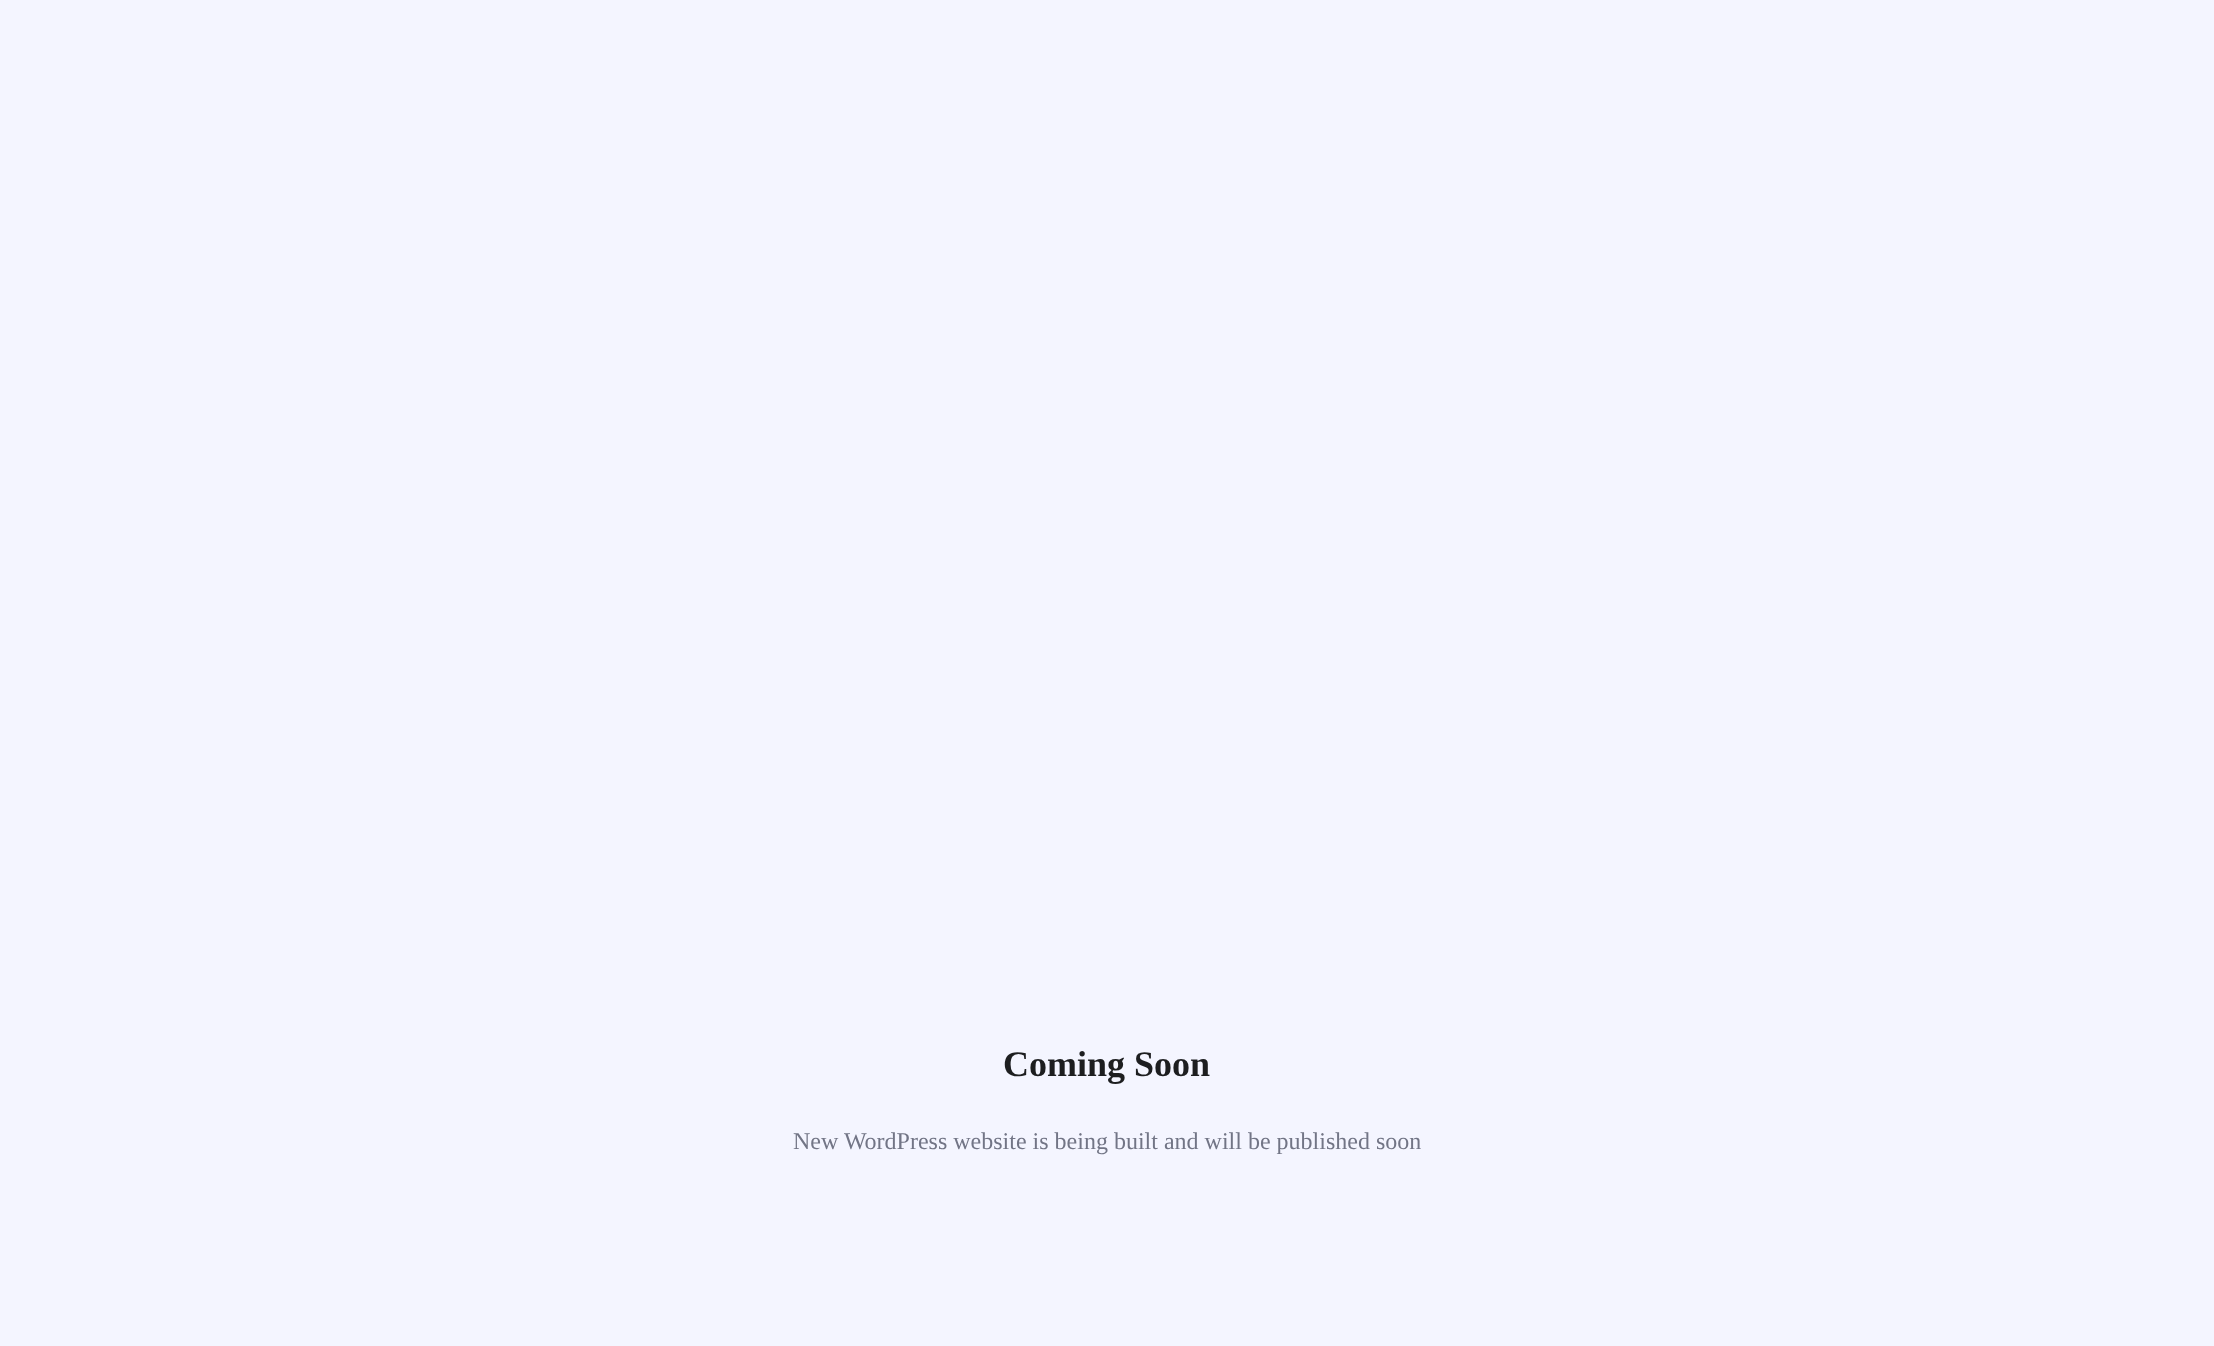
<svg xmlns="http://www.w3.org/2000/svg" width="2214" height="1346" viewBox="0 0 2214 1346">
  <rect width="100%" height="100%" fill="#f4f5ff"/>
  <text x="1003" y="1076" font-family="Liberation Serif" font-size="36" font-weight="bold" fill="#1d1e20">Coming Soon</text>
  <text x="793" y="1149" font-family="Liberation Serif" font-size="24" fill="#727586">New WordPress website is being built and will be published soon</text>
</svg>
